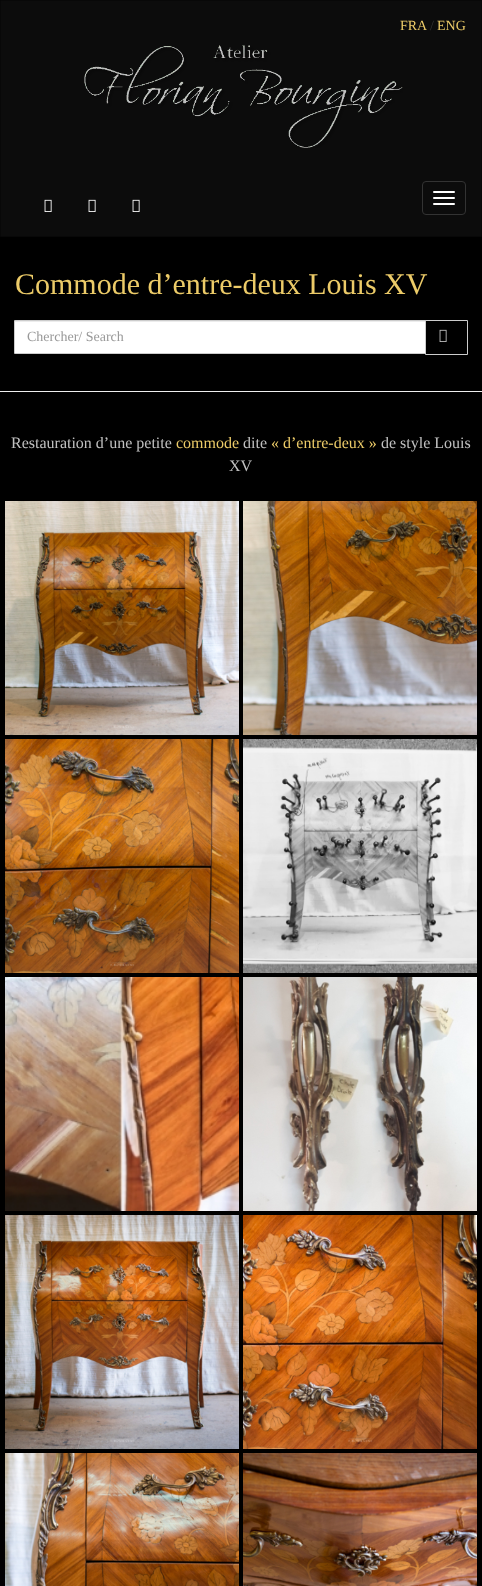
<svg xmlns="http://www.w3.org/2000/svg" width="482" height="1586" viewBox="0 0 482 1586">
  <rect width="100%" height="100%" fill="#000"/>
  <path d="M0.5 0.5h481v236H0.5z" fill="#0c0c0c" stroke="#080808"/>
  <image x="84" y="45" width="319" height="103" href="img/1.png"/>
  <image x="44" y="199" width="8" height="13" href="img/2.png"/>
  <image x="88" y="199" width="8" height="13" href="img/2.png"/>
  <image x="132" y="199" width="8" height="13" href="img/2.png"/>
  <rect x="422.5" y="181.5" width="43" height="33" rx="3.5" fill="none" stroke="#333"/>
  <rect x="433" y="191" width="22" height="2" rx="1" fill="#fff"/>
  <rect x="433" y="197" width="22" height="2" rx="1" fill="#fff"/>
  <rect x="433" y="203" width="22" height="2" rx="1" fill="#fff"/>
  <path d="M15 322h410v31H15z" fill="#fff"/>
  <path d="M15 321h410v1H15z" fill="#ececec"/>
  <path d="M14.5 320.5h411v33H14.5z" fill="none" stroke="#ccc"/>
  <path d="M425.5 320.5h42v34H425.5z" fill="none" stroke="#ccc"/>
  <image x="439" y="329" width="8" height="13" href="img/3.png"/>
  <path d="M0 391h482v1H0z" fill="#eee"/>
  <image x="5" y="501" width="234" height="234" href="img/4.png"/>
  <image x="243" y="501" width="234" height="234" href="img/5.png"/>
  <image x="5" y="739" width="234" height="234" href="img/6.png"/>
  <image x="243" y="739" width="234" height="234" href="img/7.png"/>
  <image x="5" y="977" width="234" height="234" href="img/8.png"/>
  <image x="243" y="977" width="234" height="234" href="img/9.png"/>
  <image x="5" y="1215" width="234" height="234" href="img/10.png"/>
  <image x="243" y="1215" width="234" height="234" href="img/11.png"/>
  <image x="5" y="1453" width="234" height="133" href="img/12.png"/>
  <image x="243" y="1453" width="234" height="133" href="img/13.png"/>
  <text x="400" y="30" font-family="Liberation Serif" font-size="14" fill="#eccb68">FRA</text>
  <text x="430" y="30" font-family="Liberation Serif" font-size="14" fill="#333">/</text>
  <text x="437" y="30" font-family="Liberation Serif" font-size="14" fill="#eccb68">ENG</text>
  <text x="15" y="294" font-family="Liberation Serif" font-size="30" fill="#eccb68">Commode d’entre-deux Louis XV</text>
  <text x="27" y="341" font-family="Liberation Serif" font-size="14" fill="#999">Chercher/ Search</text>
  <text x="11" y="448" font-family="Liberation Serif" font-size="16" fill="#c0c0c0">Restauration d’une petite</text>
  <text x="176" y="448" font-family="Liberation Serif" font-size="16" fill="#eccb68">commode</text>
  <text x="243" y="448" font-family="Liberation Serif" font-size="16" fill="#c0c0c0">dite</text>
  <text x="271" y="448" font-family="Liberation Serif" font-size="16" fill="#eccb68">« d’entre-deux »</text>
  <g font-family="Liberation Serif" font-size="16" fill="#c0c0c0">
    <text x="381" y="448">de style Louis</text>
    <text x="229" y="471">XV</text>
  </g>
</svg>
